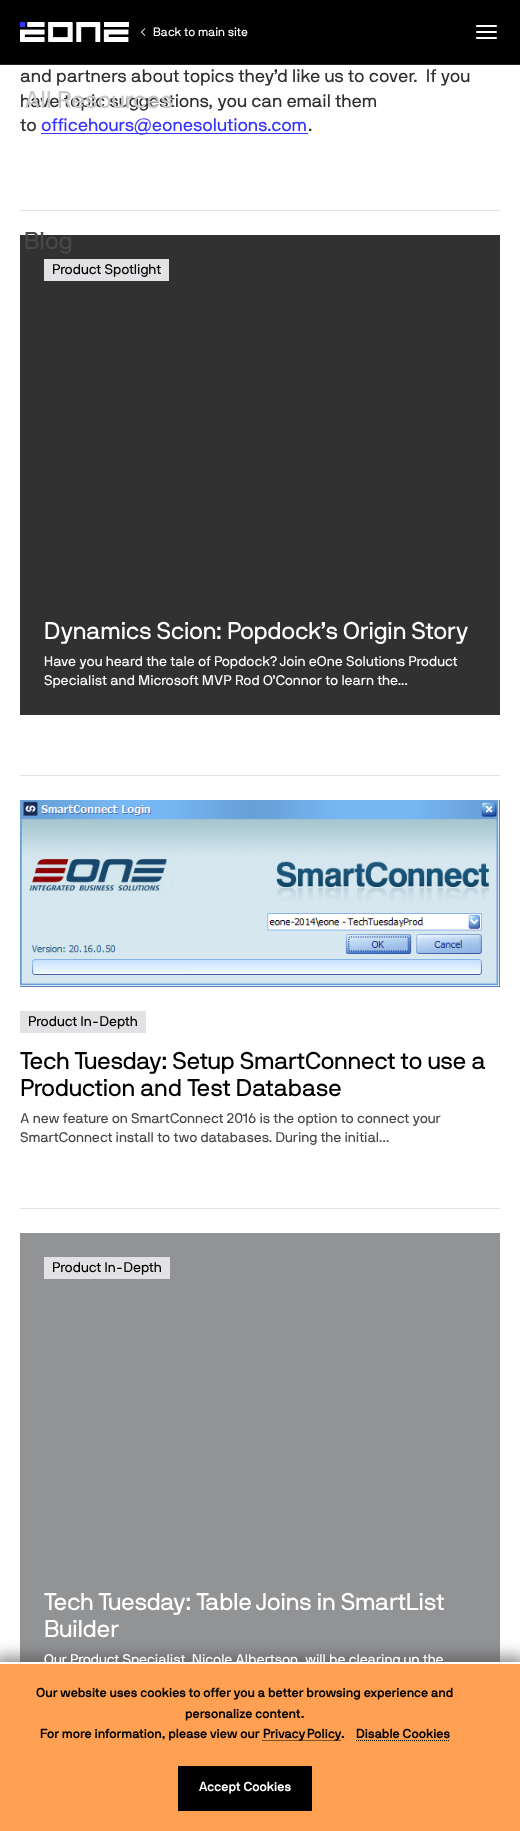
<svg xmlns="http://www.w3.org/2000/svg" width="520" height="1831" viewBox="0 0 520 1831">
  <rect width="100%" height="100%" fill="#fff"/>
  <path d="M0 0h520v64H0z" fill="#000"/>
  <image x="20" y="22" width="109" height="20" href="img/1.png"/>
  <image x="140" y="28" width="6" height="8" href="img/2.png"/>
  <rect x="476" y="25" width="21" height="2" rx="1" fill="#fff"/>
  <rect x="476" y="31" width="21" height="2" rx="1" fill="#fff"/>
  <rect x="476" y="37" width="21" height="2" rx="1" fill="#fff"/>
  <path d="M0 64h520v1H0z" fill="#262626"/>
  <path d="M41 133h267v1H41z" fill="#3533ff"/>
  <path d="M20 210h480v1H20z" fill="#e2e2e4"/>
  <path d="M20 235h480v480H20z" fill="#313131"/>
  <path d="M44 259h125v22H44z" fill="#e2e2e4"/>
  <path d="M20 775h480v1H20z" fill="#e2e2e4"/>
  <image x="20" y="800" width="480" height="187" href="img/3.png"/>
  <path d="M20 1011h126v22H20z" fill="#e2e2e4"/>
  <path d="M20 1208h480v1H20z" fill="#e2e2e4"/>
  <path d="M20 1233h480v429H20z" fill="#929395"/>
  <path d="M44 1257h126v22H44z" fill="#e2e2e4"/>
  <path d="M-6 1656h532v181H-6z" fill="#4a4a4a99" filter="blur(7.5px)"/>
  <path d="M0 1662h520v2H0z" fill="#fff"/>
  <text x="153" y="36" font-family="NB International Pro" font-size="12" fill="#fff">Back to main site</text>
  <text x="24" y="249" font-family="NB International Pro" font-size="24" fill="#484848">Blog</text>
  <g font-family="NB International Pro" font-size="18" fill="#313131">
    <text x="20" y="82" xml:space="preserve">and partners about topics they’d like us to cover.  If you</text>
    <text x="20" y="107">have topic suggestions, you can email them</text>
  </g>
  <text x="24" y="108" font-family="NB International Pro" font-size="24" fill="#c7c7c7">All Resources</text>
  <text x="20" y="131" font-family="NB International Pro" font-size="18" fill="#313131">to</text>
  <text x="41" y="131" font-family="NB International Pro" font-size="18" fill="#3533ff">officehours@eonesolutions.com</text>
  <text x="308" y="131" font-family="NB International Pro" font-size="18" fill="#313131">.</text>
  <text x="52" y="274" font-family="NB International Pro" font-size="14" fill="#000">Product Spotlight</text>
  <text x="44" y="639" font-family="NB International Pro" font-size="24" letter-spacing="-0.25" fill="#fff">Dynamics Scion: Popdock’s Origin Story</text>
  <g font-family="NB International Pro" font-size="14" fill="#fff">
    <text x="44" y="666">Have you heard the tale of Popdock? Join eOne Solutions Product</text>
    <text x="44" y="685">Specialist and Microsoft MVP Rod O’Connor to learn the...</text>
  </g>
  <text x="28" y="1026" font-family="NB International Pro" font-size="14" fill="#000">Product In-Depth</text>
  <g font-family="NB International Pro" font-size="24" letter-spacing="-0.25" fill="#000">
    <text x="20" y="1069">Tech Tuesday: Setup SmartConnect to use a</text>
    <text x="20" y="1096">Production and Test Database</text>
  </g>
  <g font-family="NB International Pro" font-size="14" fill="#484848">
    <text x="20" y="1123">A new feature on SmartConnect 2016 is the option to connect your</text>
    <text x="20" y="1142">SmartConnect install to two databases. During the initial...</text>
  </g>
  <text x="52" y="1272" font-family="NB International Pro" font-size="14" fill="#000">Product In-Depth</text>
  <g font-family="NB International Pro" font-size="24" letter-spacing="-0.25" fill="#fff">
    <text x="44" y="1610">Tech Tuesday: Table Joins in SmartList</text>
    <text x="44" y="1637">Builder</text>
  </g>
  <text x="44" y="1664" font-family="NB International Pro" font-size="14" fill="#fff">Our Product Specialist, Nicole Albertson, will be clearing up the</text>
  <path d="M0 1664h520v167H0z" fill="#ffa052"/>
  <g font-family="NB International Pro" font-size="13" font-weight="bold" fill="#000">
    <text x="36" y="1697">Our website uses cookies to offer you a better browsing experience and</text>
    <text x="185" y="1718">personalize content.</text>
    <text x="40" y="1738">For more information, please view our</text>
  </g>
  <path d="M262.5 1740.5H341" fill="none" stroke="#000" stroke-dasharray="1 1"/>
  <g font-family="NB International Pro" font-size="13" font-weight="bold" fill="#000">
    <text x="263" y="1738" word-spacing="-1">Privacy Policy</text>
    <text x="341" y="1738">.</text>
    <text x="356" y="1738">Disable Cookies</text>
  </g>
  <path d="M356 1740.5H450" fill="none" stroke="#000" stroke-dasharray="1 1"/>
  <path d="M178 1766h134v45H178z" fill="#000"/>
  <text x="199" y="1791" font-family="NB International Pro" font-size="13" font-weight="bold" fill="#fff">Accept Cookies</text>
</svg>
